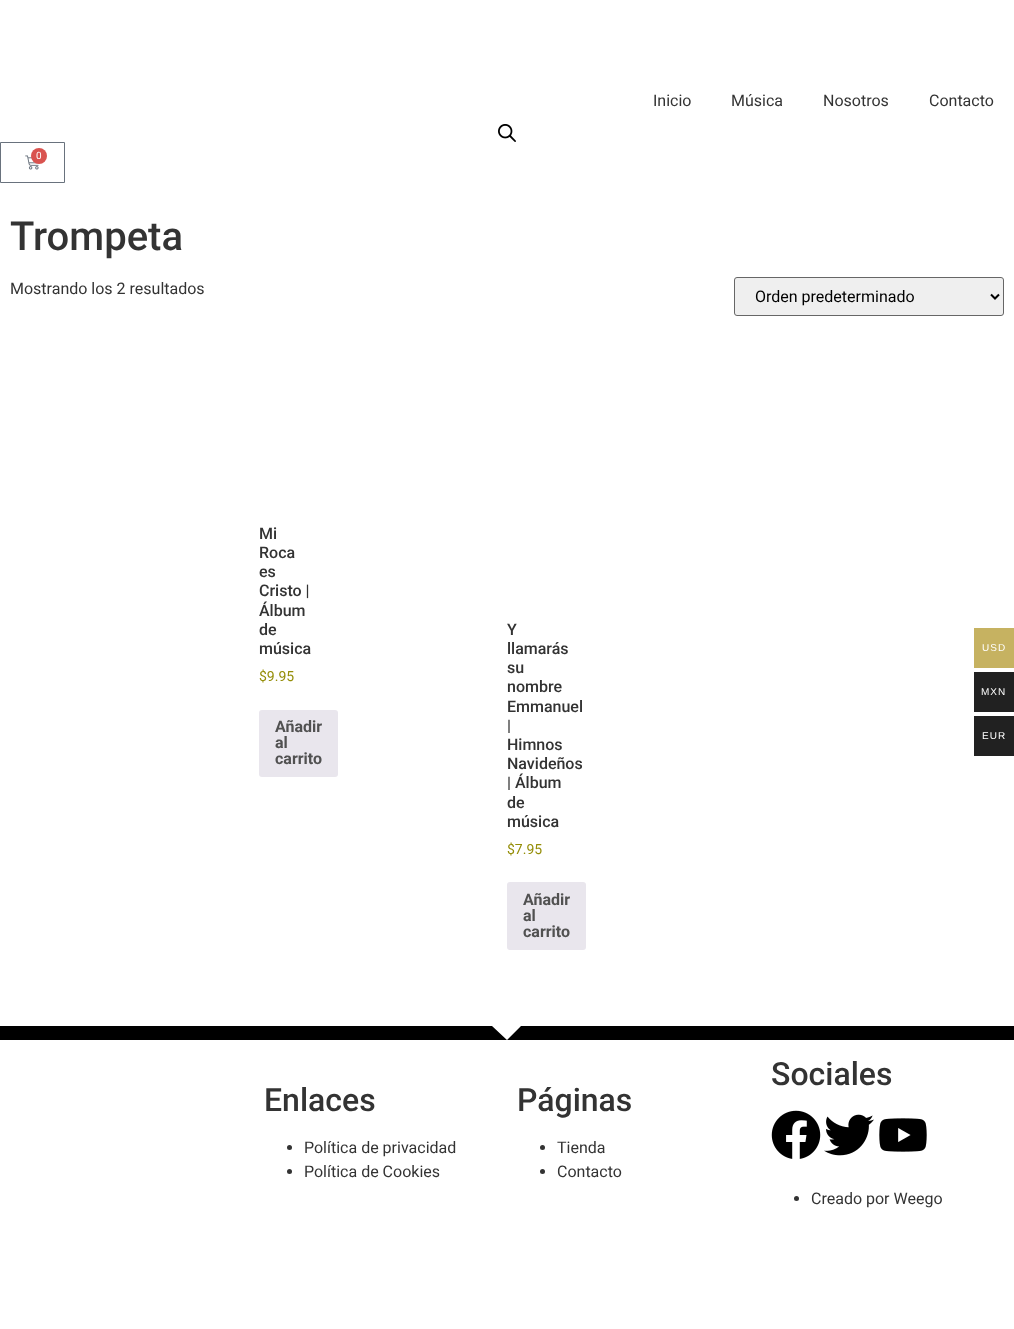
<svg xmlns="http://www.w3.org/2000/svg" width="1014" height="1329" viewBox="0 0 1014 1329">
  <rect width="100%" height="100%" fill="#fff"/>
  <image x="498" y="124" width="18" height="18" href="img/1.png"/>
  <path d="M0.5 142.5h64v40H0.5z" fill="none" stroke="#69727d"/>
  <image x="25" y="155" width="14" height="15" href="img/2.png"/>
  <circle cx="39" cy="156" r="8" fill="#d9534f"/>
  <rect x="734.5" y="277.5" width="269" height="38" rx="2.5" fill="#efefef" stroke="#666"/>
  <path d="M991 294.5L995 298.5L999 294.5" fill="none" stroke="#000" stroke-width="2"/>
  <rect x="259" y="710" width="79" height="67" rx="3" fill="#e9e6ed"/>
  <rect x="507" y="882" width="79" height="68" rx="3" fill="#e9e6ed"/>
  <path d="M974 628h40v40H974z" fill="#c6b261"/>
  <path d="M974 672h40v40H974z" fill="#212121"/>
  <path d="M974 716h40v40H974z" fill="#212121"/>
  <path d="M521 1026L507 1040L492 1026H0V1040H1014V1026" fill="#000"/>
  <circle cx="289.5" cy="1147.5" r="2.5" fill="#333"/>
  <circle cx="289.5" cy="1171.5" r="2.5" fill="#333"/>
  <circle cx="542.5" cy="1147.5" r="2.5" fill="#333"/>
  <circle cx="542.5" cy="1171.5" r="2.5" fill="#333"/>
  <image x="771" y="1110" width="50" height="49" href="img/3.png"/>
  <image x="824" y="1114" width="50" height="42" href="img/4.png"/>
  <image x="879" y="1118" width="48" height="34" href="img/5.png"/>
  <circle cx="796.5" cy="1198.5" r="2.5" fill="#333"/>
  <g font-family="Roboto" font-size="16" fill="#333">
    <text x="653" y="106">Inicio</text>
    <text x="731" y="106">Música</text>
    <text x="823" y="106">Nosotros</text>
    <text x="929" y="106">Contacto</text>
  </g>
  <text x="36" y="159" font-family="Roboto" font-size="10" fill="#fff">0</text>
  <text x="10" y="250" font-family="Roboto" font-size="40" font-weight="500" fill="#333">Trompeta</text>
  <text x="10" y="294" font-family="Roboto" font-size="16" fill="#333">Mostrando los 2 resultados</text>
  <text x="755" y="302" font-family="Roboto" font-size="16" fill="#000">Orden predeterminado</text>
  <g font-family="Roboto" font-size="16" font-weight="500" fill="#333">
    <text x="259" y="539">Mi</text>
    <text x="259" y="558">Roca</text>
    <text x="259" y="577">es</text>
    <text x="259" y="596">Cristo |</text>
    <text x="259" y="616">Álbum</text>
    <text x="259" y="635">de</text>
    <text x="259" y="654">música</text>
  </g>
  <text x="259" y="681" font-family="Roboto" font-size="14" fill="#958e09">$9.95</text>
  <g font-family="Roboto" font-size="16" font-weight="bold" fill="#515151">
    <text x="275" y="732">Añadir</text>
    <text x="275" y="748">al</text>
    <text x="275" y="764">carrito</text>
  </g>
  <g font-family="Roboto" font-size="16" font-weight="500" fill="#333">
    <text x="507" y="635">Y</text>
    <text x="507" y="654">llamarás</text>
    <text x="507" y="673">su</text>
    <text x="507" y="692">nombre</text>
    <text x="507" y="712">Emmanuel</text>
    <text x="507" y="731">|</text>
    <text x="507" y="750">Himnos</text>
    <text x="507" y="769">Navideños</text>
    <text x="507" y="788">| Álbum</text>
    <text x="507" y="808">de</text>
    <text x="507" y="827">música</text>
  </g>
  <text x="507" y="854" font-family="Roboto" font-size="14" fill="#958e09">$7.95</text>
  <g font-family="Roboto" font-size="16" font-weight="bold" fill="#515151">
    <text x="523" y="905">Añadir</text>
    <text x="523" y="921">al</text>
    <text x="523" y="937">carrito</text>
  </g>
  <g font-family="Liberation Sans" font-size="10" letter-spacing="1" fill="#fff">
    <text x="982" y="651">USD</text>
    <text x="981" y="695">MXN</text>
    <text x="982" y="739">EUR</text>
  </g>
  <text x="264" y="1111" font-family="Roboto" font-size="32" font-weight="500" fill="#333">Enlaces</text>
  <g font-family="Roboto" font-size="16" fill="#333">
    <text x="304" y="1153">Política de privacidad</text>
    <text x="304" y="1177">Política de Cookies</text>
  </g>
  <text x="517" y="1111" font-family="Roboto" font-size="32" font-weight="500" fill="#333">Páginas</text>
  <g font-family="Roboto" font-size="16" fill="#333">
    <text x="557" y="1153">Tienda</text>
    <text x="557" y="1177">Contacto</text>
  </g>
  <text x="771" y="1085" font-family="Roboto" font-size="32" font-weight="500" fill="#333">Sociales</text>
  <text x="811" y="1204" font-family="Roboto" font-size="16" fill="#333">Creado por Weego</text>
</svg>
